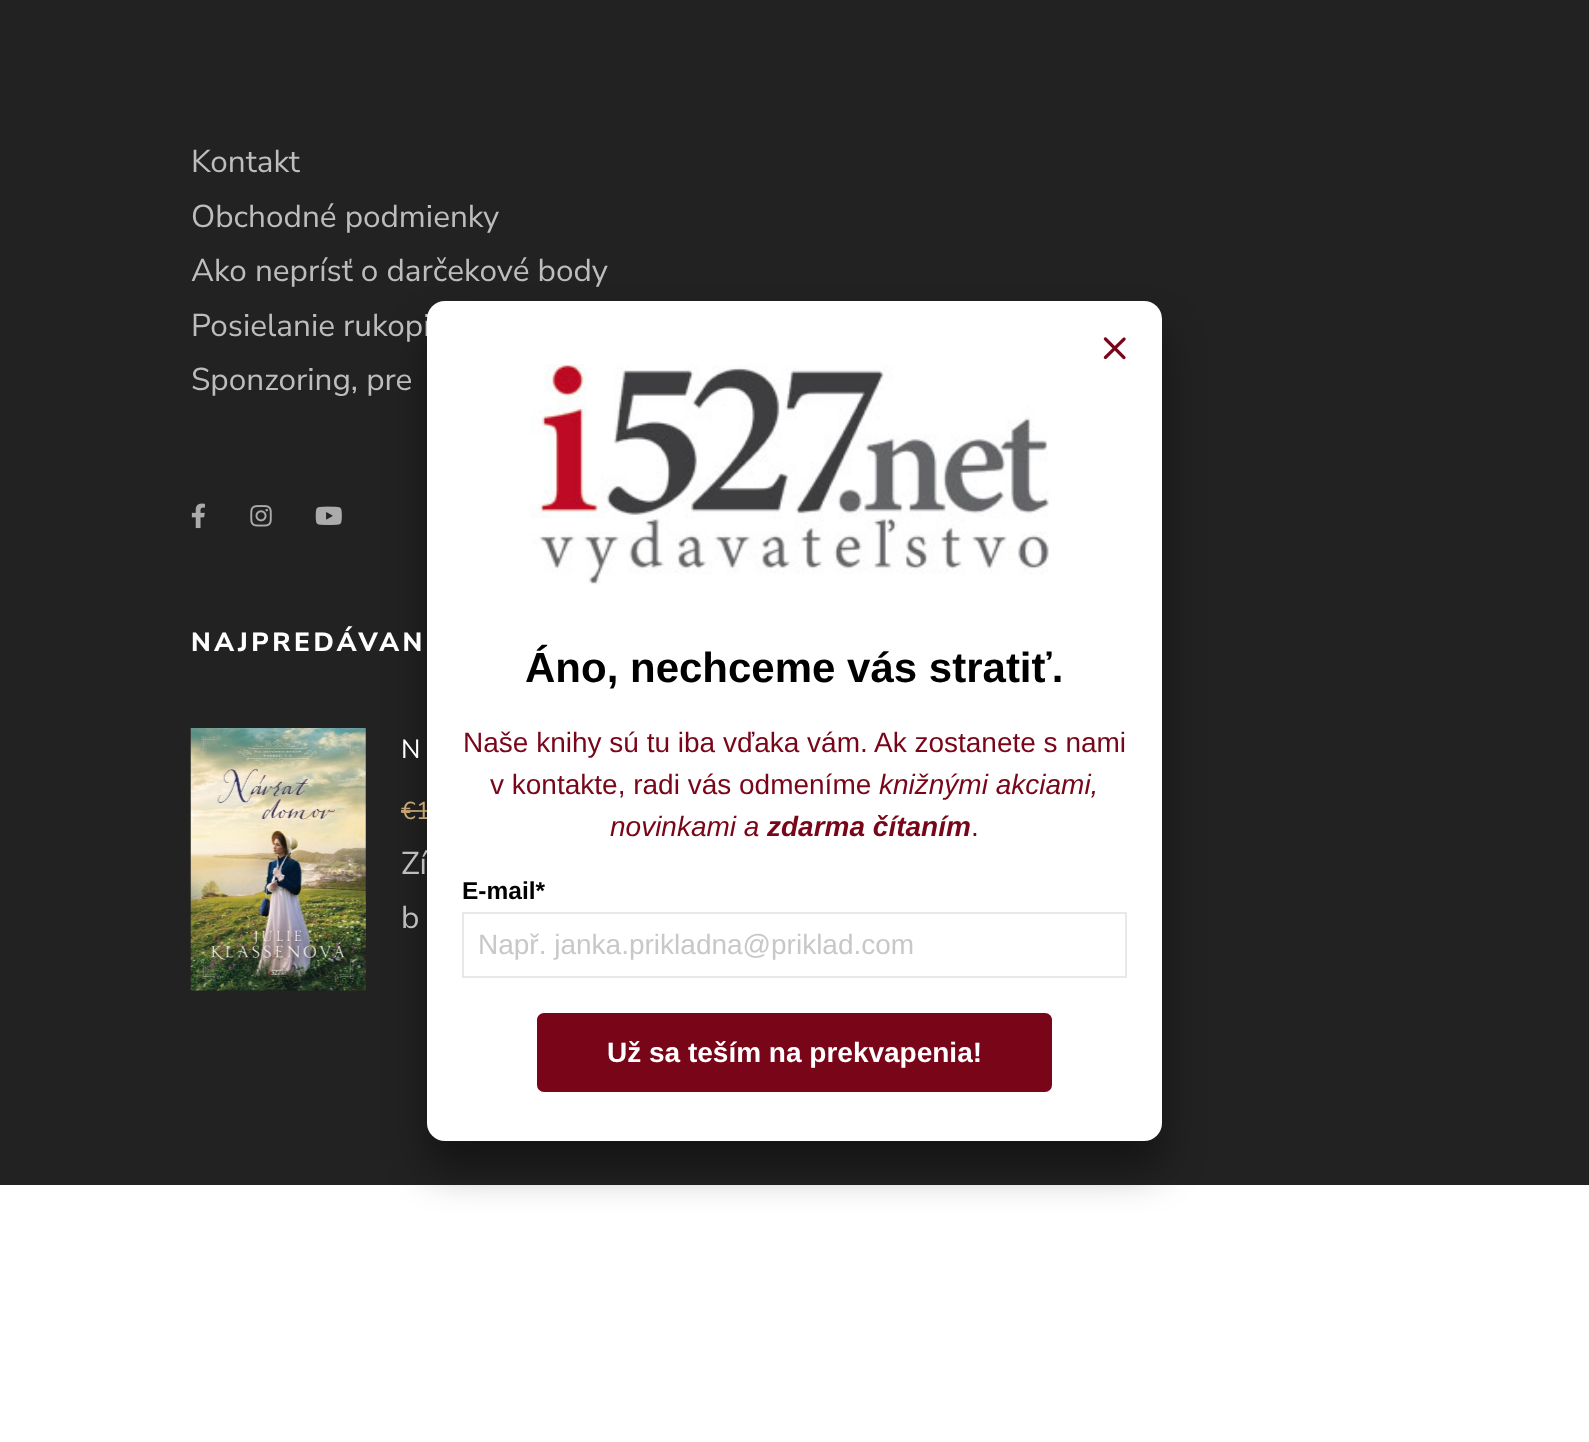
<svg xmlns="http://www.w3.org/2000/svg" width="1589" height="1442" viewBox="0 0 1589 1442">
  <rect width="100%" height="100%" fill="#fff"/>
  <path d="M0 0h1589v1185H0z" fill="#222"/>
  <image x="191" y="503" width="14" height="26" href="img/1.png"/>
  <image x="250" y="505" width="22" height="22" href="img/2.png"/>
  <image x="315" y="506" width="27" height="19" href="img/3.png"/>
  <image x="190" y="728" width="176" height="263" href="img/4.png"/>
  <path d="M401 810h26v2H401z" fill="#c5a374"/>
  <rect x="427" y="329" width="735" height="840" rx="18" fill="#00000066" filter="blur(21px)"/>
  <g font-family="Nunito Sans" font-size="31.5" fill="#bdbdbd">
    <text x="191" y="172">Kontakt</text>
    <text x="191" y="227">Obchodné podmienky</text>
    <text x="191" y="281">Ako neprísť o darčekové body</text>
    <text x="191" y="336">Posielanie rukopi</text>
    <text x="191" y="390">Sponzoring, pre</text>
  </g>
  <text x="191" y="651" font-family="Nunito Sans" font-size="26.25" font-weight="800" letter-spacing="3.5" fill="#fff">NAJPREDÁVAN</text>
  <text x="401" y="758" font-family="Nunito Sans" font-size="26.25" fill="#fff">N</text>
  <text x="401" y="819" font-family="Nunito Sans" font-size="24.5" fill="#c5a374">€1</text>
  <g font-family="Nunito Sans" font-size="31.5" fill="#bdbdbd">
    <text x="401" y="874">Zí</text>
    <text x="401" y="928">b</text>
  </g>
  <rect x="427" y="301" width="735" height="840" rx="18" fill="#fff"/>
  <image x="1103" y="337" width="23" height="23" href="img/5.png"/>
  <image x="530" y="364" width="519" height="221" href="img/6.png"/>
  <text x="525" y="682" font-family="Liberation Sans" font-size="42" font-weight="bold" fill="#000">Áno, nechceme vás stratiť.</text>
  <g font-family="Liberation Sans" font-size="28" fill="#780518">
    <text x="463" y="752">Naše knihy sú tu iba vďaka vám. Ak zostanete s nami</text>
    <text x="490" y="794">v kontakte, radi vás odmeníme</text>
  </g>
  <g font-family="Liberation Sans" font-size="28" font-style="italic" fill="#780518">
    <text x="879" y="794">knižnými akciami,</text>
    <text x="610" y="836">novinkami a</text>
  </g>
  <text x="767" y="836" font-family="Liberation Sans" font-size="28" font-weight="bold" font-style="italic" fill="#780518">zdarma čítaním</text>
  <text x="971" y="836" font-family="Liberation Sans" font-size="28" fill="#780518">.</text>
  <text x="462" y="899" font-family="Liberation Sans" font-size="24.5" font-weight="bold" fill="#000">E-mail*</text>
  <path d="M463 913h663v64H463z" fill="none" stroke="#e8e8e8" stroke-width="2"/>
  <text x="478" y="954" font-family="Liberation Sans" font-size="28" fill="#c7c8c7">Např. janka.prikladna@priklad.com</text>
  <rect x="537" y="1013" width="515" height="79" rx="7" fill="#780518"/>
  <text x="607" y="1062" font-family="Liberation Sans" font-size="28" font-weight="bold" fill="#fff">Už sa teším na prekvapenia!</text>
</svg>
